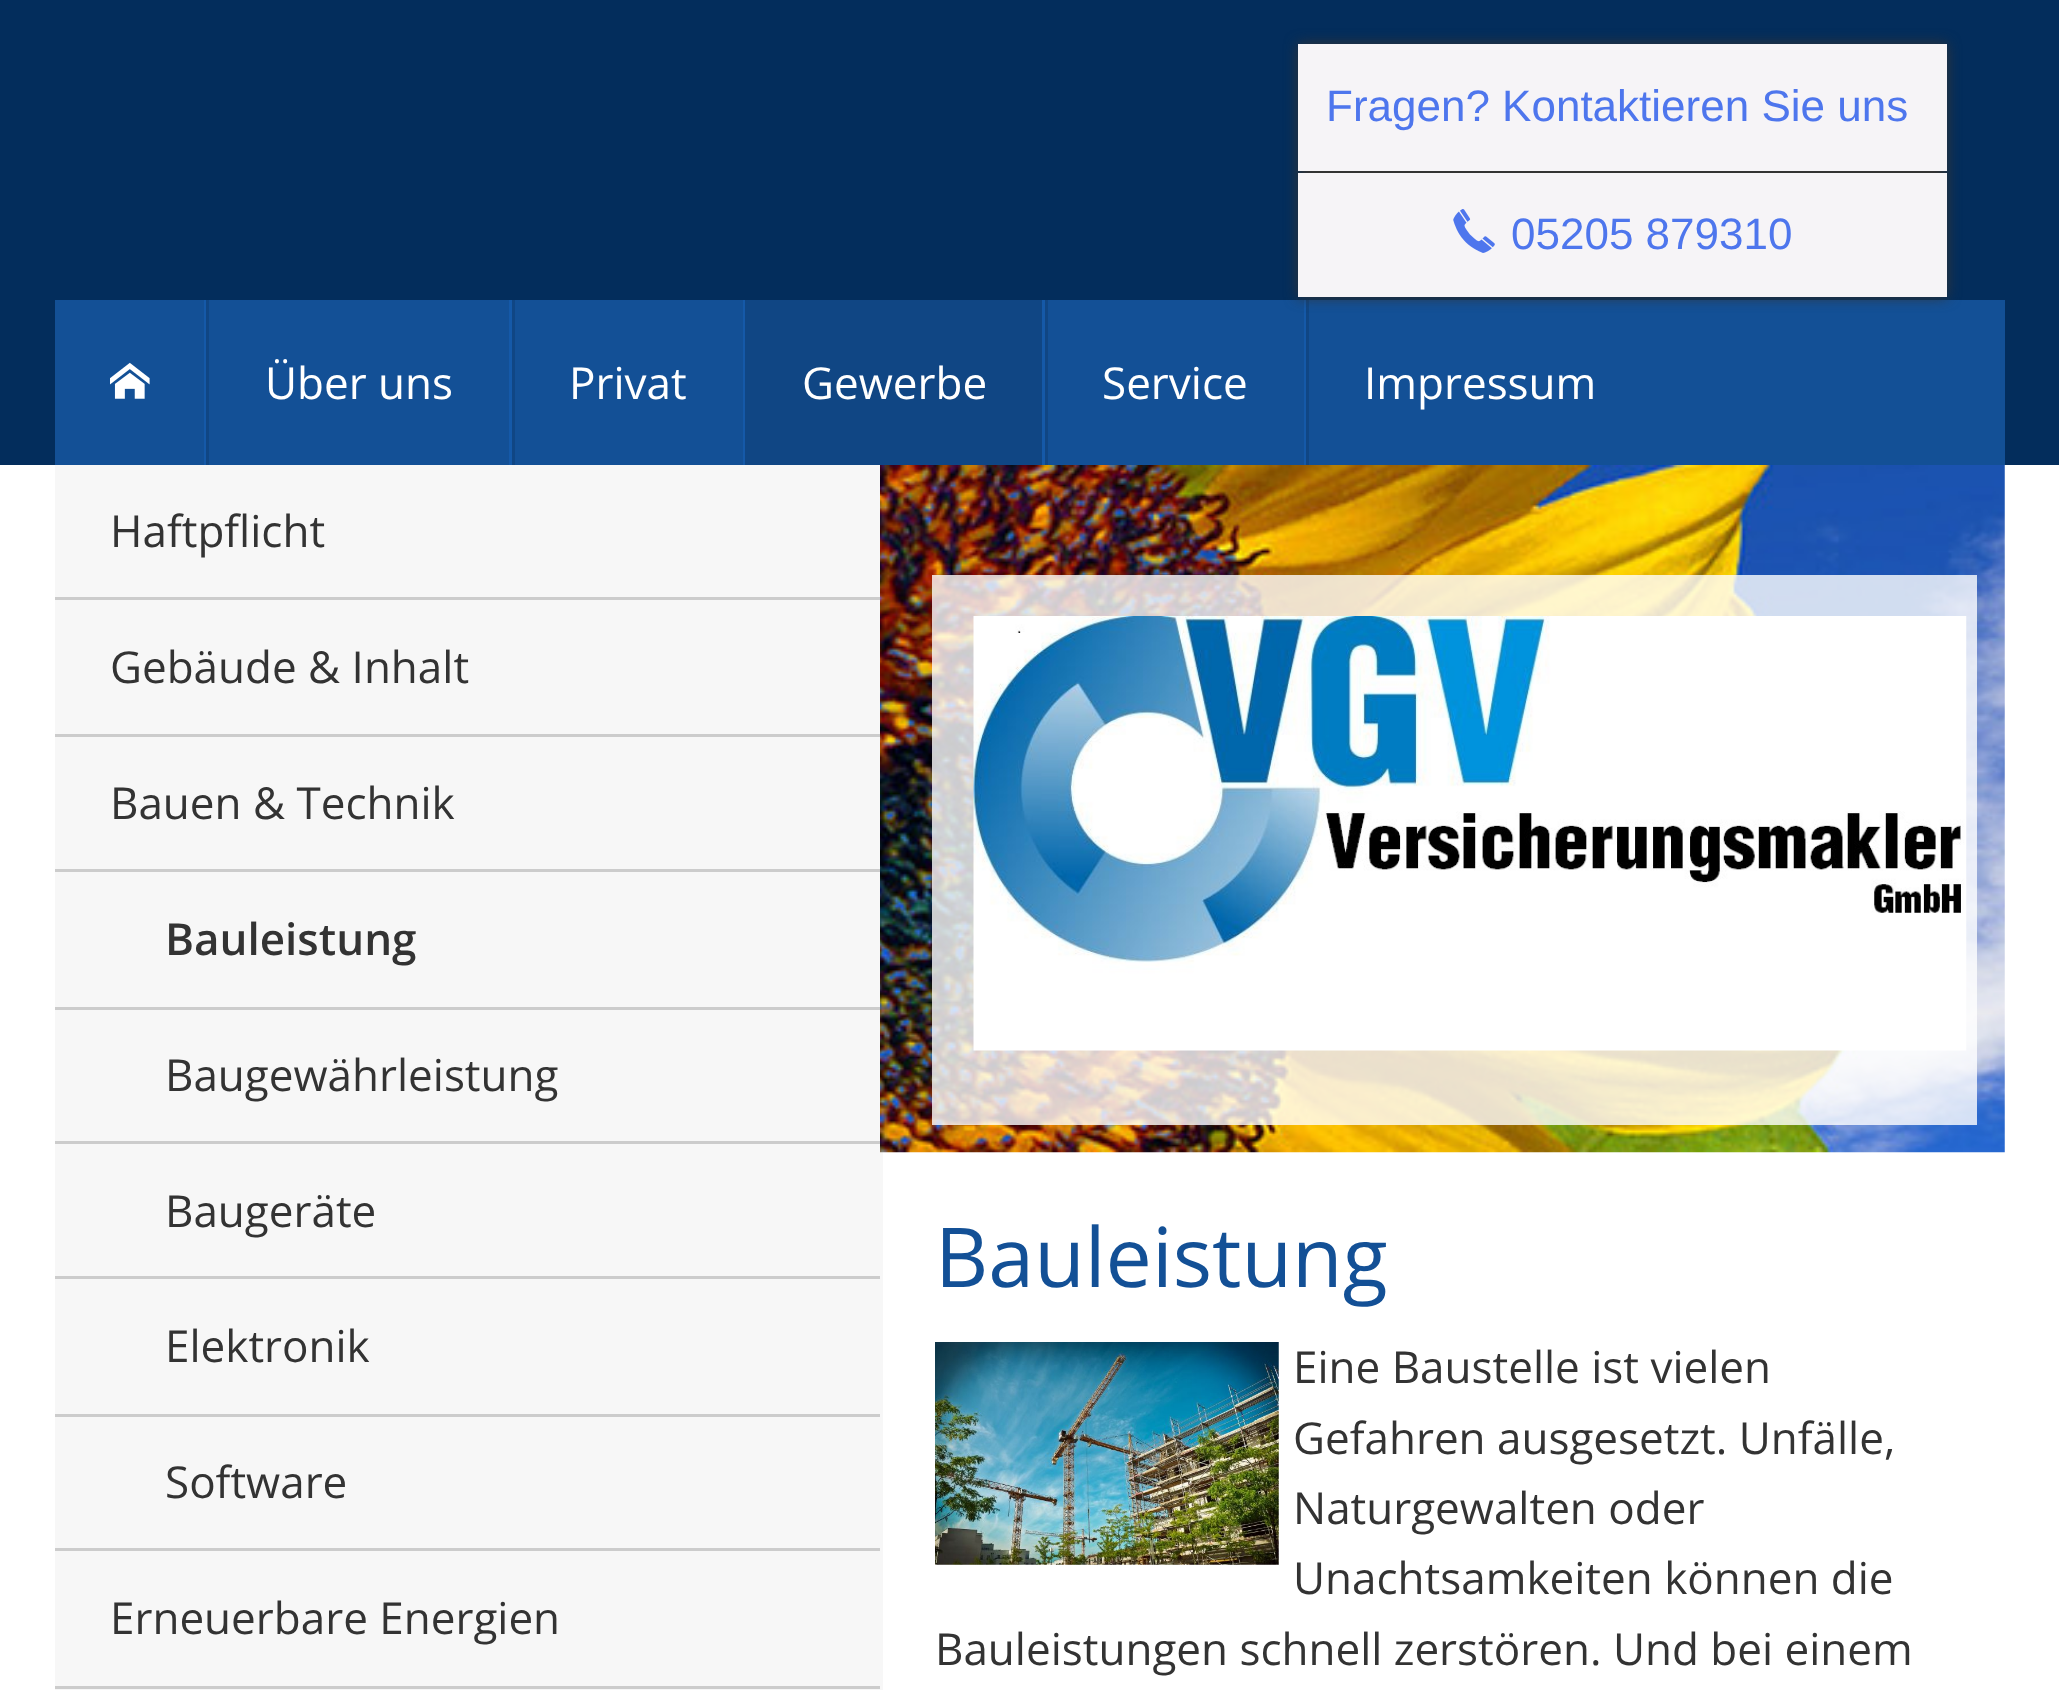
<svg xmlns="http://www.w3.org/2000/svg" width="2059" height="1690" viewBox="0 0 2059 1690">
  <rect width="100%" height="100%" fill="#fff"/>
  <path d="M0 0h2059v465H0z" fill="#032d5c"/>
  <path d="M55 465h828v1225H55z" fill="#f7f7f7"/>
  <image x="880" y="465" width="1125" height="688" href="img/1.png"/>
  <path d="M55 300h1950v165H55z" fill="#135096"/>
  <path d="M1304 300h2v165H1304z" fill="#1559a8"/>
  <path d="M1306 300h3v165H1306z" fill="#104684"/>
  <path d="M1298 44h649v253H1298z" fill="#333" filter="blur(7px)"/>
  <path d="M1298 44h649v127H1298z" fill="#f6f4f7"/>
  <path d="M1298 173h649v124H1298z" fill="#f6f4f7"/>
  <image x="1453" y="209" width="42" height="44" href="img/2.png"/>
  <path d="M932 575h1045v550H932z" fill="#ffffffcc"/>
  <image x="973" y="616" width="994" height="435" href="img/3.png"/>
  <path d="M204 300h2v165H204z" fill="#1559a8"/>
  <image x="110" y="362" width="40" height="37" href="img/4.png"/>
  <path d="M509 300h3v165H509z" fill="#1559a8"/>
  <path d="M206 300h3v165H206z" fill="#104684"/>
  <path d="M745 300h297v165H745z" fill="#104684"/>
  <path d="M1042 300h3v165H1042z" fill="#1559a8"/>
  <path d="M55 597h825v3H55z" fill="#ccc"/>
  <path d="M55 734h825v3H55z" fill="#ccc"/>
  <path d="M55 869h825v3H55z" fill="#ccc"/>
  <path d="M55 1548h825v3H55z" fill="#ccc"/>
  <path d="M55 1007h825v3H55z" fill="#ccc"/>
  <path d="M55 1141h825v3H55z" fill="#ccc"/>
  <path d="M55 1276h825v3H55z" fill="#ccc"/>
  <path d="M55 1414h825v3H55z" fill="#ccc"/>
  <path d="M55 1686h825v3H55z" fill="#ccc"/>
  <path d="M743 300h2v165H743z" fill="#1559a8"/>
  <path d="M512 300h3v165H512z" fill="#104684"/>
  <path d="M1045 300h3v165H1045z" fill="#104684"/>
  <image x="935" y="1342" width="344" height="223" href="img/5.png"/>
  <g font-family="Liberation Sans" font-size="44" fill="#4e76ed">
    <text x="1326" y="121">Fragen? Kontaktieren Sie uns</text>
    <text x="1511" y="249">05205 879310</text>
  </g>
  <g font-family="Open Sans" font-size="44" fill="#fff">
    <text x="265" y="399">Über uns</text>
    <text x="802" y="399">Gewerbe</text>
  </g>
  <g font-family="Open Sans" font-size="44" fill="#333">
    <text x="110" y="547">Haftpflicht</text>
    <text x="110" y="683">Gebäude &amp; Inhalt</text>
    <text x="110" y="819">Bauen &amp; Technik</text>
  </g>
  <text x="165" y="955" font-family="Open Sans" font-size="44" font-weight="600" fill="#333">Bauleistung</text>
  <g font-family="Open Sans" font-size="44" fill="#333">
    <text x="165" y="1091">Baugewährleistung</text>
    <text x="165" y="1227">Baugeräte</text>
    <text x="165" y="1362">Elektronik</text>
    <text x="165" y="1498">Software</text>
    <text x="110" y="1634">Erneuerbare Energien</text>
  </g>
  <g font-family="Open Sans" font-size="44" fill="#fff">
    <text x="569" y="399">Privat</text>
    <text x="1102" y="399">Service</text>
    <text x="1364" y="399">Impressum</text>
  </g>
  <text x="935" y="1287" font-family="Open Sans" font-size="82.5" fill="#135096">Bauleistung</text>
  <g font-family="Open Sans" font-size="44" fill="#333">
    <text x="1293" y="1383">Eine Baustelle ist vielen</text>
    <text x="1293" y="1454">Gefahren ausgesetzt. Unfälle,</text>
    <text x="1293" y="1524">Naturgewalten oder</text>
    <text x="1293" y="1594">Unachtsamkeiten können die</text>
    <text x="935" y="1665">Bauleistungen schnell zerstören. Und bei einem</text>
  </g>
</svg>
